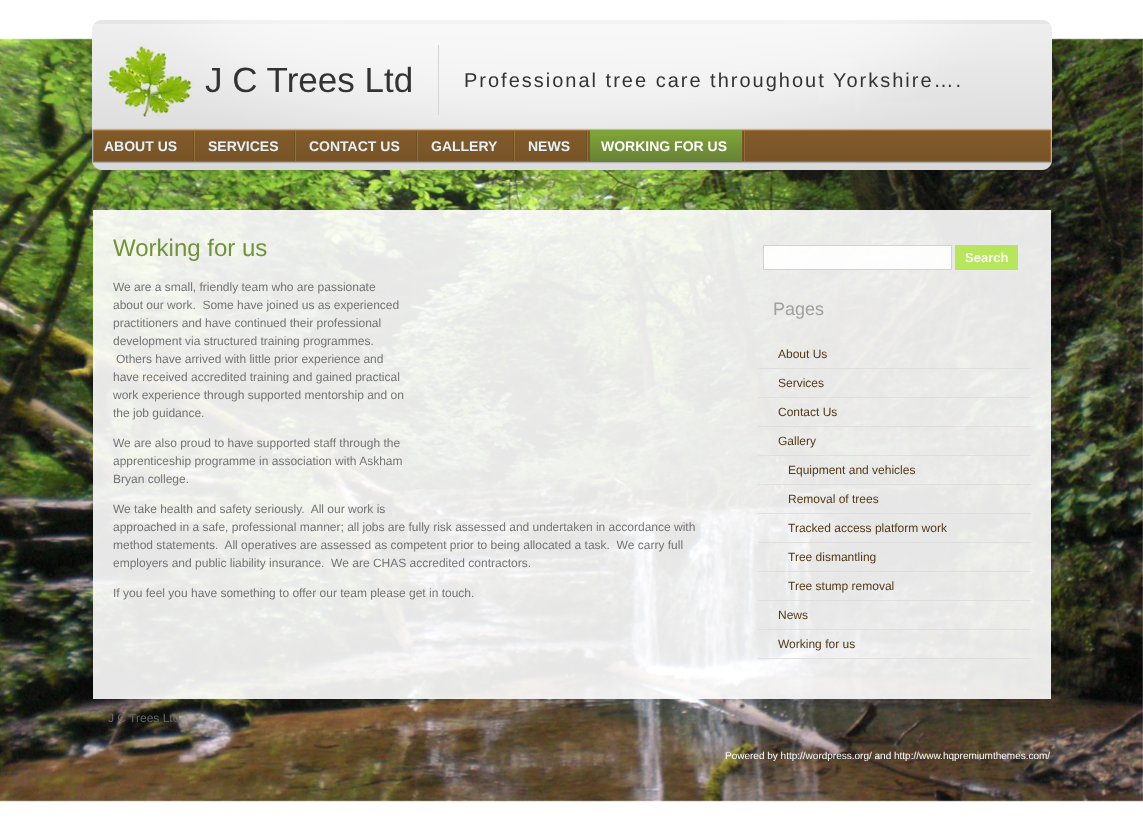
<svg xmlns="http://www.w3.org/2000/svg" width="1143" height="840" viewBox="0 0 1143 840">
  <rect width="100%" height="100%" fill="#fff"/>
  <image x="0" y="38" width="1143" height="764" href="img/1.png"/>
  <image x="92" y="20" width="960" height="150" href="img/2.png"/>
  <path d="M438 45h1v70H438z" fill="#d5d5d5"/>
  <image x="106" y="45" width="87" height="72" href="img/3.png"/>
  <image x="91" y="128" width="961" height="36" href="img/4.png"/>
  <image x="193" y="131" width="2" height="30" href="img/5.png"/>
  <image x="294" y="131" width="2" height="30" href="img/5.png"/>
  <image x="416" y="131" width="2" height="30" href="img/5.png"/>
  <image x="513" y="131" width="2" height="30" href="img/5.png"/>
  <image x="586" y="131" width="2" height="30" href="img/5.png"/>
  <image x="743" y="131" width="2" height="30" href="img/5.png"/>
  <image x="740" y="130" width="2" height="32" href="img/6.png"/>
  <image x="590" y="130" width="150" height="32" href="img/7.png"/>
  <path d="M93 210h958v489H93z" fill="#ffffffe6"/>
  <path d="M763.5 245.5h188v24H763.5z" fill="#ffffffe6" stroke="#d1d1d1"/>
  <path d="M955 245h63v25H955z" fill="#b1e54ce6"/>
  <path d="M758 368h273v1H758z" fill="#dddddde6"/>
  <path d="M758 397h273v1H758z" fill="#dddddde6"/>
  <path d="M758 426h273v1H758z" fill="#dddddde6"/>
  <path d="M758 455h273v1H758z" fill="#dddddde6"/>
  <path d="M758 484h273v1H758z" fill="#dddddde6"/>
  <path d="M758 513h273v1H758z" fill="#dddddde6"/>
  <path d="M758 542h273v1H758z" fill="#dddddde6"/>
  <path d="M758 571h273v1H758z" fill="#dddddde6"/>
  <path d="M758 600h273v1H758z" fill="#dddddde6"/>
  <path d="M758 629h273v1H758z" fill="#dddddde6"/>
  <path d="M758 658h273v1H758z" fill="#dddddde6"/>
  <text x="205" y="92" font-family="Liberation Sans" font-size="35" fill="#333">J C Trees Ltd</text>
  <text x="464" y="87" font-family="Liberation Sans" font-size="20" letter-spacing="2" fill="#333">Professional tree care throughout Yorkshire….</text>
  <g font-family="Liberation Sans" font-size="14" font-weight="bold" fill="#e4f1f8">
    <text x="104" y="151">ABOUT US</text>
    <text x="208" y="151">SERVICES</text>
    <text x="309" y="151">CONTACT US</text>
    <text x="431" y="151">GALLERY</text>
    <text x="528" y="151">NEWS</text>
  </g>
  <text x="601" y="151" font-family="Liberation Sans" font-size="14" font-weight="bold" fill="#fff">WORKING FOR US</text>
  <text x="113" y="256" font-family="Liberation Sans" font-size="24" fill="#739239">Working for us</text>
  <g font-family="Liberation Sans" font-size="12" fill="#737373">
    <text x="113" y="291">We are a small, friendly team who are passionate</text>
    <text x="113" y="309" xml:space="preserve">about our work.  Some have joined us as experienced</text>
    <text x="113" y="327">practitioners and have continued their professional</text>
    <text x="113" y="345">development via structured training programmes.</text>
    <text x="116" y="363">Others have arrived with little prior experience and</text>
    <text x="113" y="381">have received accredited training and gained practical</text>
    <text x="113" y="399">work experience through supported mentorship and on</text>
    <text x="113" y="417">the job guidance.</text>
    <text x="113" y="447">We are also proud to have supported staff through the</text>
    <text x="113" y="465">apprenticeship programme in association with Askham</text>
    <text x="113" y="483">Bryan college.</text>
    <text x="113" y="513" xml:space="preserve">We take health and safety seriously.  All our work is</text>
    <text x="113" y="531">approached in a safe, professional manner; all jobs are fully risk assessed and undertaken in accordance with</text>
    <text x="113" y="549" xml:space="preserve">method statements.  All operatives are assessed as competent prior to being allocated a task.  We carry full</text>
    <text x="113" y="567" xml:space="preserve">employers and public liability insurance.  We are CHAS accredited contractors.</text>
    <text x="113" y="597">If you feel you have something to offer our team please get in touch.</text>
  </g>
  <text x="965" y="262" font-family="Liberation Sans" font-size="13" font-weight="bold" fill="#f8fcef">Search</text>
  <text x="773" y="315" font-family="Liberation Sans" font-size="18" fill="#a1a1a1">Pages</text>
  <g font-family="Liberation Sans" font-size="12" fill="#503a17">
    <text x="778" y="358">About Us</text>
    <text x="778" y="387">Services</text>
    <text x="778" y="416">Contact Us</text>
    <text x="778" y="445">Gallery</text>
    <text x="788" y="474">Equipment and vehicles</text>
    <text x="788" y="503">Removal of trees</text>
    <text x="788" y="532">Tracked access platform work</text>
    <text x="788" y="561">Tree dismantling</text>
    <text x="788" y="590">Tree stump removal</text>
    <text x="778" y="619">News</text>
    <text x="778" y="648">Working for us</text>
  </g>
  <text x="108" y="722" font-family="Liberation Sans" font-size="12" fill="#646464">J C Trees Ltd</text>
  <text x="725" y="759" font-family="Liberation Sans" font-size="10" fill="#fff">Powered by http://wordpress.org/ and http://www.hqpremiumthemes.com/</text>
</svg>
